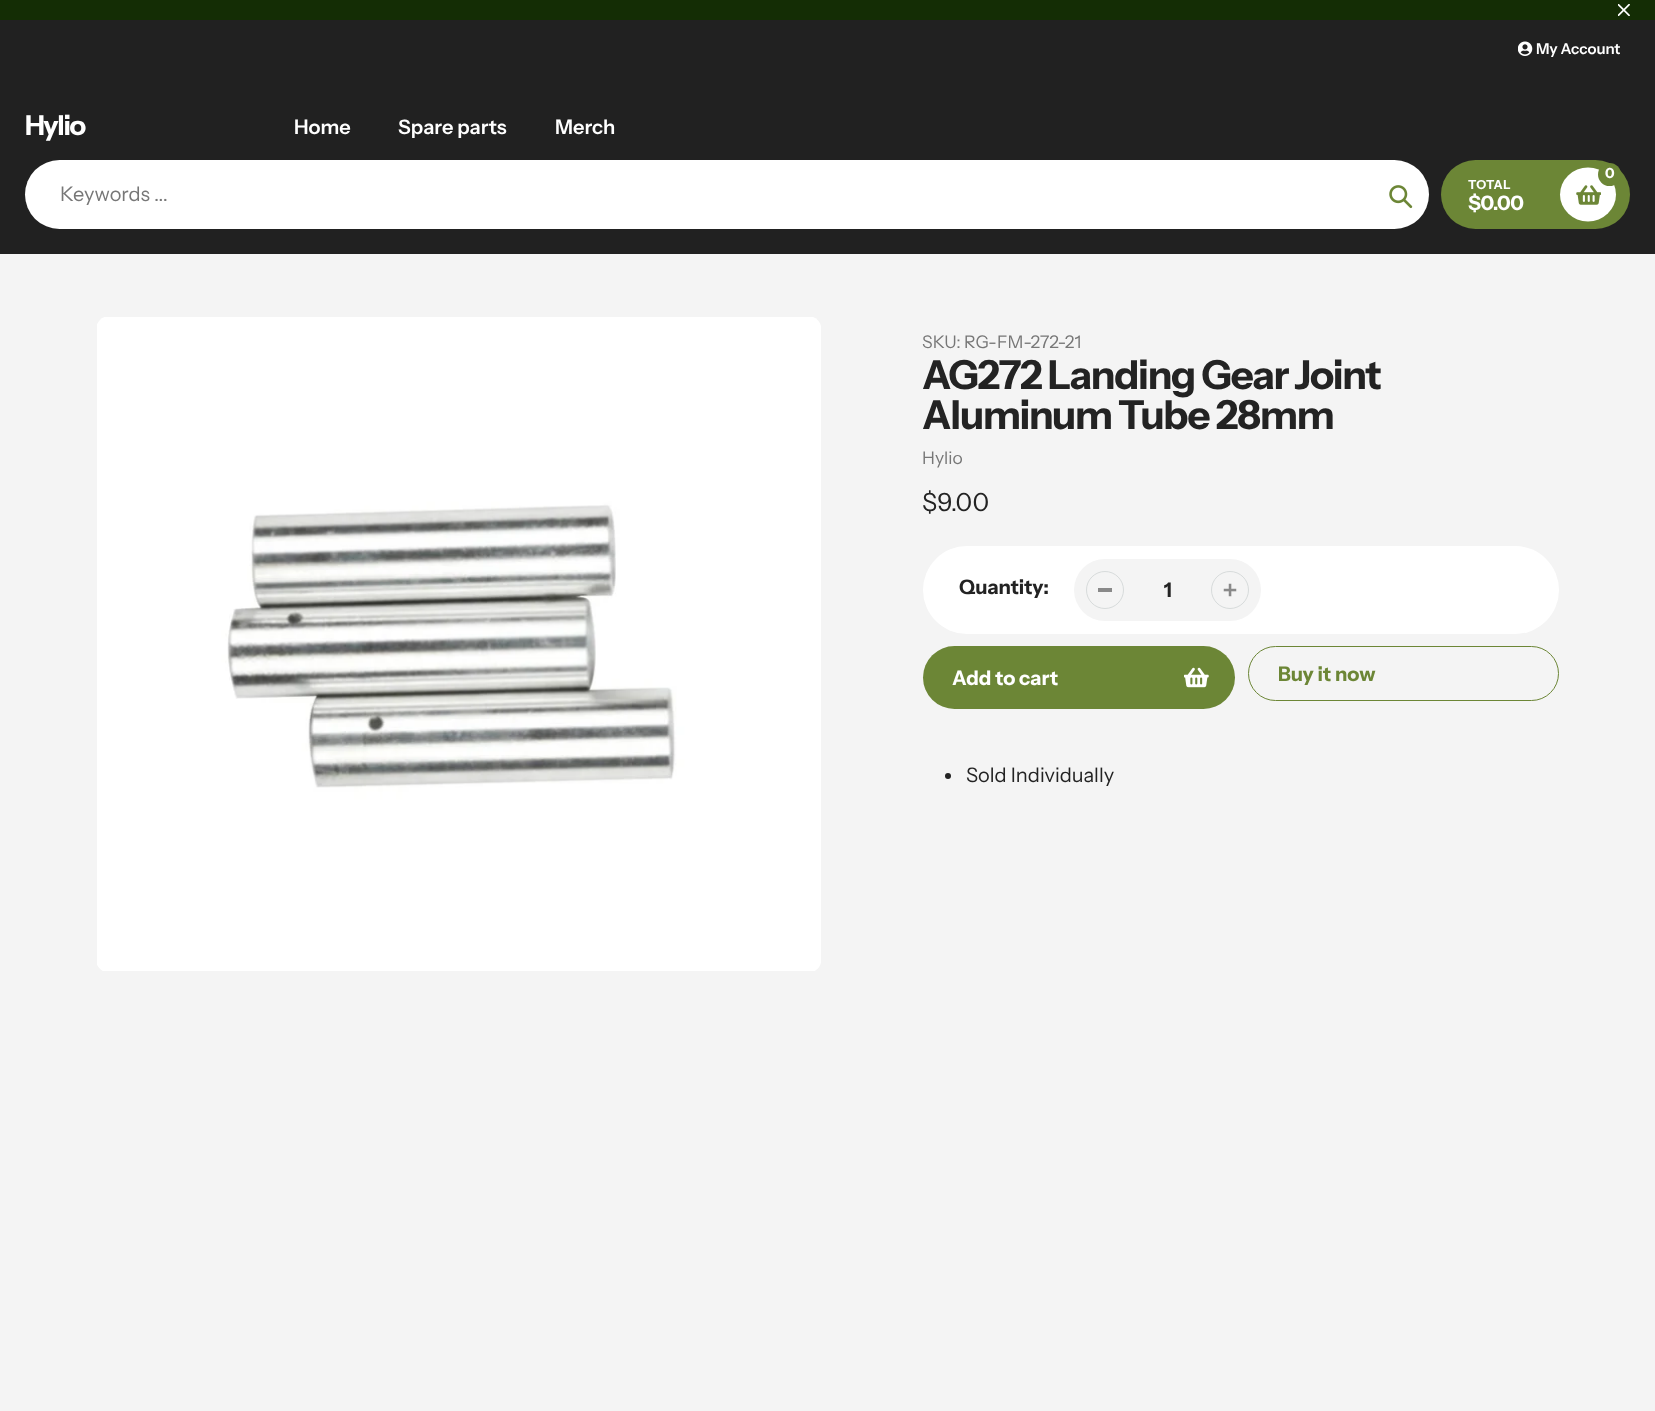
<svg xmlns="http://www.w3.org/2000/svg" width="1655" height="1411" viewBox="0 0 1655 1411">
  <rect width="100%" height="100%" fill="#f4f4f4"/>
  <path d="M0 0h1655v20H0z" fill="#142d05"/>
  <image x="1618" y="4" width="12" height="12" href="img/1.png"/>
  <path d="M0 20h1655v234H0z" fill="#212121"/>
  <image x="1518" y="41" width="15" height="15" href="img/2.png"/>
  <rect x="25" y="160" width="1404" height="69" rx="34.5" fill="#fff"/>
  <image x="1389" y="185" width="24" height="24" href="img/3.png"/>
  <rect x="1441" y="160" width="189" height="69" rx="34.5" fill="#6c8636"/>
  <ellipse cx="1588" cy="194.5" rx="28" ry="27" fill="#fff"/>
  <image x="1576" y="185" width="25" height="20" href="img/4.png"/>
  <circle cx="1609.5" cy="174.5" r="11.5" fill="#6c8636"/>
  <image x="97" y="317" width="724" height="654" href="img/5.png"/>
  <rect x="923" y="546" width="636" height="88" rx="44" fill="#fff"/>
  <rect x="1074" y="559" width="187" height="62" rx="31" fill="#f4f4f4"/>
  <path d="M1098 588h14v4H1098z" fill="#898989"/>
  <circle cx="1105" cy="590" r="18.5" fill="none" stroke="#d7dbdb"/>
  <image x="1223" y="583" width="14" height="14" href="img/6.png"/>
  <circle cx="1230" cy="590" r="18.5" fill="none" stroke="#d7dbdb"/>
  <rect x="923" y="646" width="312" height="63" rx="31.5" fill="#6c8636"/>
  <image x="1184" y="667" width="25" height="21" href="img/7.png"/>
  <rect x="1248.5" y="646.5" width="310" height="54" rx="27" fill="none" stroke="#6c8636"/>
  <circle cx="948" cy="776" r="3" fill="#232323"/>
  <text x="1536" y="54" font-family="Instrument Sans" font-size="15" font-weight="600" fill="#fff">My Account</text>
  <text x="25" y="135" font-family="Instrument Sans" font-size="27.5" font-weight="bold" letter-spacing="-1.25" fill="#fff">Hylio</text>
  <g font-family="Instrument Sans" font-size="20" font-weight="600" fill="#fff">
    <text x="294" y="134">Home</text>
    <text x="398" y="134">Spare parts</text>
    <text x="555" y="134">Merch</text>
  </g>
  <text x="60" y="201" font-family="Instrument Sans" font-size="20" fill="#777">Keywords ...</text>
  <text x="1605" y="178" font-family="Instrument Sans" font-size="14" font-weight="bold" fill="#fff">0</text>
  <text x="1468" y="189" font-family="Instrument Sans" font-size="12.5" font-weight="bold" letter-spacing="0.5" fill="#fff">TOTAL</text>
  <text x="1468" y="210" font-family="Instrument Sans" font-size="20" font-weight="bold" letter-spacing="-0.5" fill="#fff">$0.00</text>
  <text x="922" y="348" font-family="Instrument Sans" font-size="17.5" fill="#777">SKU: RG-FM-272-21</text>
  <g font-family="Instrument Sans" font-size="40" font-weight="bold" letter-spacing="-1.25" fill="#232323">
    <text x="922" y="389">AG272 Landing Gear Joint</text>
    <text x="922" y="429">Aluminum Tube 28mm</text>
  </g>
  <text x="922" y="464" font-family="Instrument Sans" font-size="17.5" fill="#777">Hylio</text>
  <text x="922" y="511" font-family="Instrument Sans" font-size="25" fill="#232323">$9.00</text>
  <g font-family="Instrument Sans" font-size="20" font-weight="bold" fill="#232323">
    <text x="959" y="594">Quantity:</text>
    <text x="1164" y="597">1</text>
  </g>
  <text x="952" y="685" font-family="Instrument Sans" font-size="20" font-weight="bold" fill="#fff">Add to cart</text>
  <text x="1278" y="681" font-family="Instrument Sans" font-size="20" font-weight="bold" fill="#6c8636">Buy it now</text>
  <text x="966" y="782" font-family="Instrument Sans" font-size="20" fill="#232323">Sold Individually</text>
</svg>
